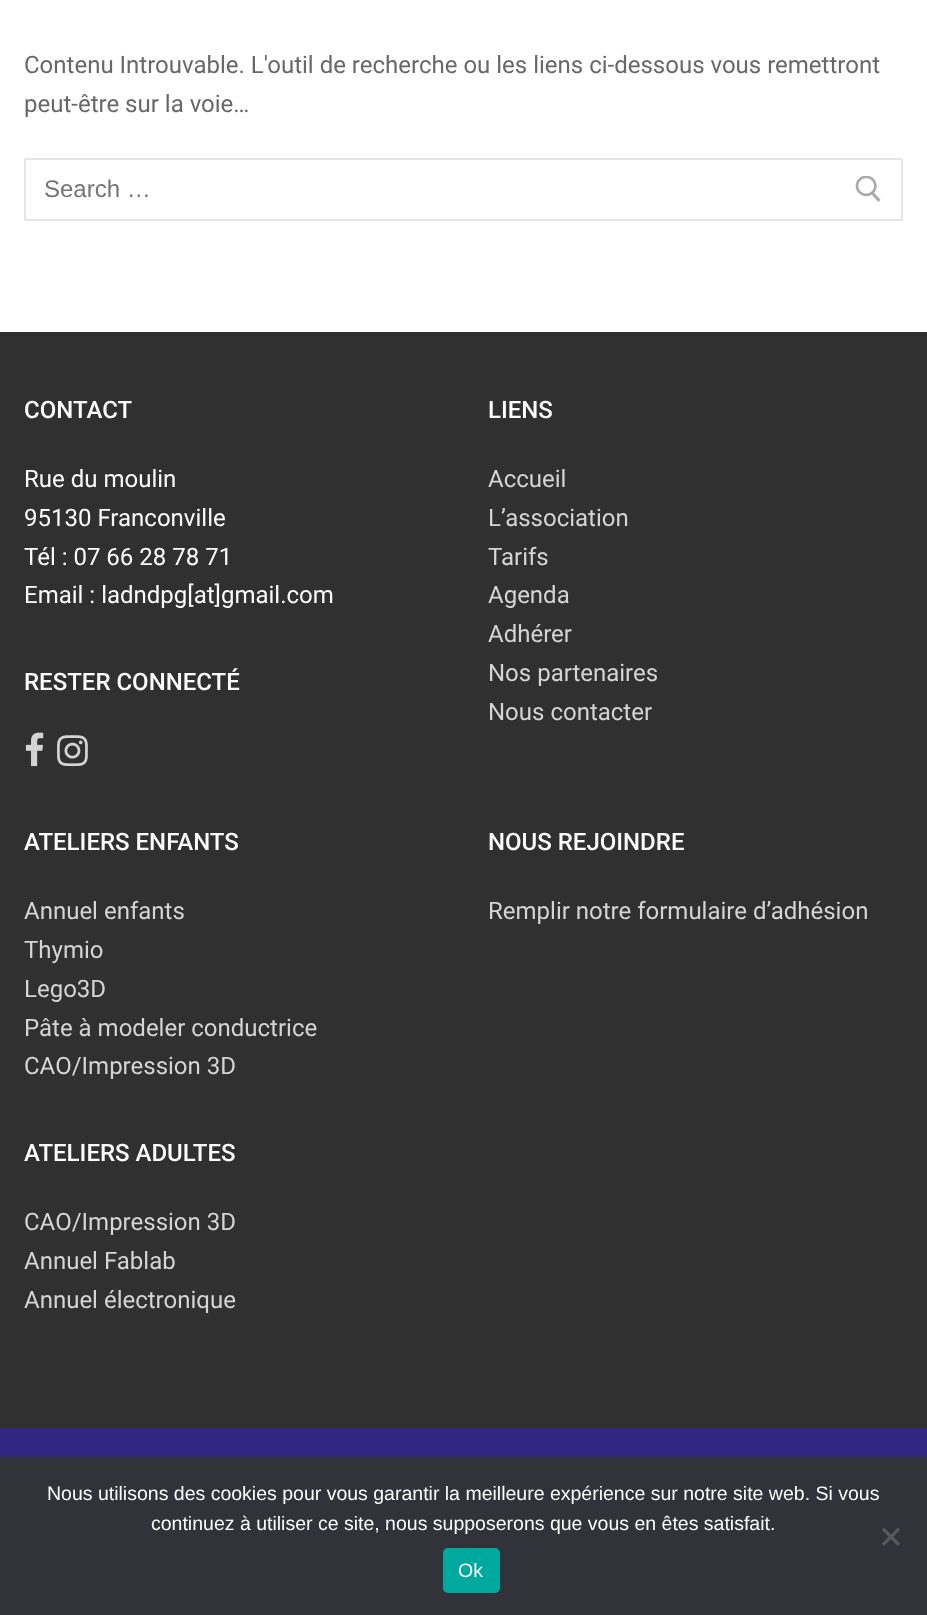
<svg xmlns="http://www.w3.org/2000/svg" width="927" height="1615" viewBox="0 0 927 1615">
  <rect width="100%" height="100%" fill="#fff"/>
  <rect x="25" y="159" width="877" height="61" rx="0.5" fill="none" stroke="#e5e5e5" stroke-width="2"/>
  <image x="855" y="176" width="26" height="26" href="img/1.png"/>
  <path d="M0 332h927v1096H0z" fill="#303030"/>
  <image x="25" y="732" width="19" height="35" href="img/2.png"/>
  <image x="57" y="735" width="31" height="32" href="img/3.png"/>
  <path d="M0 1428h927v29H0z" fill="#312783"/>
  <path d="M0 1457h927v158H0z" fill="#32323a"/>
  <path d="M898 1527.5L900 1530L884 1546L882 1543.5Z" fill="#59595d"/>
  <path d="M882 1530L884 1527.5L900 1543.5L898 1546Z" fill="#59595d"/>
  <rect x="443" y="1548" width="57" height="45" rx="5" fill="#00a99d"/>
  <g font-family="Roboto" font-size="24" fill="#686868">
    <text x="24" y="73">Contenu Introuvable. L'outil de recherche ou les liens ci-dessous vous remettront</text>
    <text x="24" y="112">peut-être sur la voie…</text>
  </g>
  <text x="44" y="197" font-family="Liberation Sans" font-size="24" fill="#757575">Search …</text>
  <text x="24" y="418" font-family="Roboto" font-size="24" font-weight="500" fill="#fdfdfd">CONTACT</text>
  <g font-family="Roboto" font-size="24" fill="#fdfdfd">
    <text x="24" y="487">Rue du moulin</text>
    <text x="24" y="526">95130 Franconville</text>
    <text x="24" y="565">Tél : 07 66 28 78 71</text>
    <text x="24" y="603">Email : ladndpg[at]gmail.com</text>
  </g>
  <g font-family="Roboto" font-size="24" font-weight="500" fill="#fdfdfd">
    <text x="24" y="690">RESTER CONNECTÉ</text>
    <text x="488" y="418">LIENS</text>
  </g>
  <g font-family="Roboto" font-size="24" fill="#d4d4d4">
    <text x="488" y="487">Accueil</text>
    <text x="488" y="526">L’association</text>
    <text x="488" y="565">Tarifs</text>
    <text x="488" y="603">Agenda</text>
    <text x="488" y="642">Adhérer</text>
    <text x="488" y="681">Nos partenaires</text>
    <text x="488" y="720">Nous contacter</text>
  </g>
  <text x="24" y="850" font-family="Roboto" font-size="24" font-weight="500" fill="#fdfdfd">ATELIERS ENFANTS</text>
  <g font-family="Roboto" font-size="24" fill="#d4d4d4">
    <text x="24" y="919">Annuel enfants</text>
    <text x="24" y="958">Thymio</text>
    <text x="24" y="997">Lego3D</text>
    <text x="24" y="1036">Pâte à modeler conductrice</text>
    <text x="24" y="1074">CAO/Impression 3D</text>
  </g>
  <text x="24" y="1161" font-family="Roboto" font-size="24" font-weight="500" fill="#fdfdfd">ATELIERS ADULTES</text>
  <g font-family="Roboto" font-size="24" fill="#d4d4d4">
    <text x="24" y="1230">CAO/Impression 3D</text>
    <text x="24" y="1269">Annuel Fablab</text>
    <text x="24" y="1308">Annuel électronique</text>
  </g>
  <text x="488" y="850" font-family="Roboto" font-size="24" font-weight="500" fill="#fdfdfd">NOUS REJOINDRE</text>
  <text x="488" y="919" font-family="Roboto" font-size="24" fill="#d4d4d4">Remplir notre formulaire d’adhésion</text>
  <g font-family="Liberation Sans" font-size="19.5" fill="#fdfdfd">
    <text x="47" y="1500">Nous utilisons des cookies pour vous garantir la meilleure expérience sur notre site web. Si vous</text>
    <text x="151" y="1530">continuez à utiliser ce site, nous supposerons que vous en êtes satisfait.</text>
    <text x="458" y="1577">Ok</text>
  </g>
</svg>
